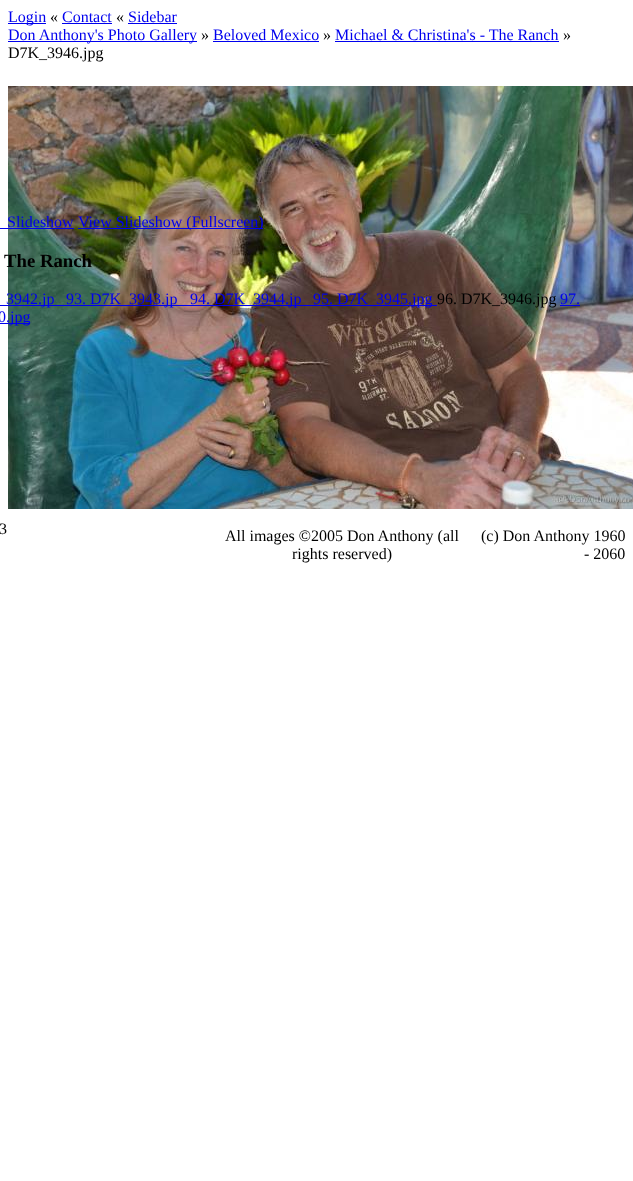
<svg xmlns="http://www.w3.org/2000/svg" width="633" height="1181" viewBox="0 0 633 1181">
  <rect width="100%" height="100%" fill="#fff"/>
  <path d="M8 23h38v1H8z" fill="#00e"/>
  <path d="M62 23h50v1H62z" fill="#00e"/>
  <path d="M128 23h49v1H128z" fill="#00e"/>
  <path d="M8 41h189v1H8z" fill="#00e"/>
  <path d="M213 41h106v1H213z" fill="#00e"/>
  <path d="M335 41h224v1H335z" fill="#00e"/>
  <image x="8" y="86" width="625" height="423" href="img/1.png"/>
  <path d="M0 228h74v1H0z" fill="#00e"/>
  <path d="M78 228h185v1H78z" fill="#00e"/>
  <path d="M0 305h437v1H0z" fill="#00e"/>
  <path d="M560 305h20v1H560z" fill="#00e"/>
  <path d="M0 323h30v1H0z" fill="#00e"/>
  <text x="8" y="22" font-family="Liberation Serif" font-size="16" fill="#00e">Login</text>
  <text x="50" y="22" font-family="Liberation Serif" font-size="16" fill="#000">«</text>
  <text x="62" y="22" font-family="Liberation Serif" font-size="16" fill="#00e">Contact</text>
  <text x="116" y="22" font-family="Liberation Serif" font-size="16" fill="#000">«</text>
  <g font-family="Liberation Serif" font-size="16" fill="#00e">
    <text x="128" y="22">Sidebar</text>
    <text x="8" y="40">Don Anthony's Photo Gallery</text>
  </g>
  <text x="201" y="40" font-family="Liberation Serif" font-size="16" fill="#000">»</text>
  <text x="213" y="40" font-family="Liberation Serif" font-size="16" fill="#00e">Beloved Mexico</text>
  <text x="323" y="40" font-family="Liberation Serif" font-size="16" fill="#000">»</text>
  <text x="335" y="40" font-family="Liberation Serif" font-size="16" fill="#00e">Michael &amp; Christina's - The Ranch</text>
  <g font-family="Liberation Serif" font-size="16" fill="#000">
    <text x="563" y="40">»</text>
    <text x="8" y="58">D7K_3946.jpg</text>
  </g>
  <g font-family="Liberation Serif" font-size="16" fill="#00e">
    <text x="7" y="227">Slideshow</text>
    <text x="78" y="227">View Slideshow (Fullscreen)</text>
  </g>
  <text x="4" y="267" font-family="Liberation Serif" font-size="18.75" font-weight="bold" fill="#000">The Ranch</text>
  <g font-family="Liberation Serif" font-size="16" fill="#00e">
    <text x="6" y="304">3942.jp</text>
    <text x="66" y="304">93. D7K_3943.jp</text>
    <text x="190" y="304">94. D7K_3944.jp</text>
    <text x="313" y="304">95. D7K_3945.jpg</text>
  </g>
  <text x="437" y="304" font-family="Liberation Serif" font-size="16" fill="#000">96. D7K_3946.jpg</text>
  <g font-family="Liberation Serif" font-size="16" fill="#00e">
    <text x="560" y="304">97.</text>
    <text x="-2" y="322">0.jpg</text>
  </g>
  <g font-family="Liberation Serif" font-size="16" fill="#000">
    <text x="-1" y="534">3</text>
    <text x="225" y="541">All images ©2005 Don Anthony (all</text>
    <text x="292" y="559">rights reserved)</text>
    <text x="481" y="541">(c) Don Anthony 1960</text>
    <text x="584" y="559">- 2060</text>
  </g>
</svg>
